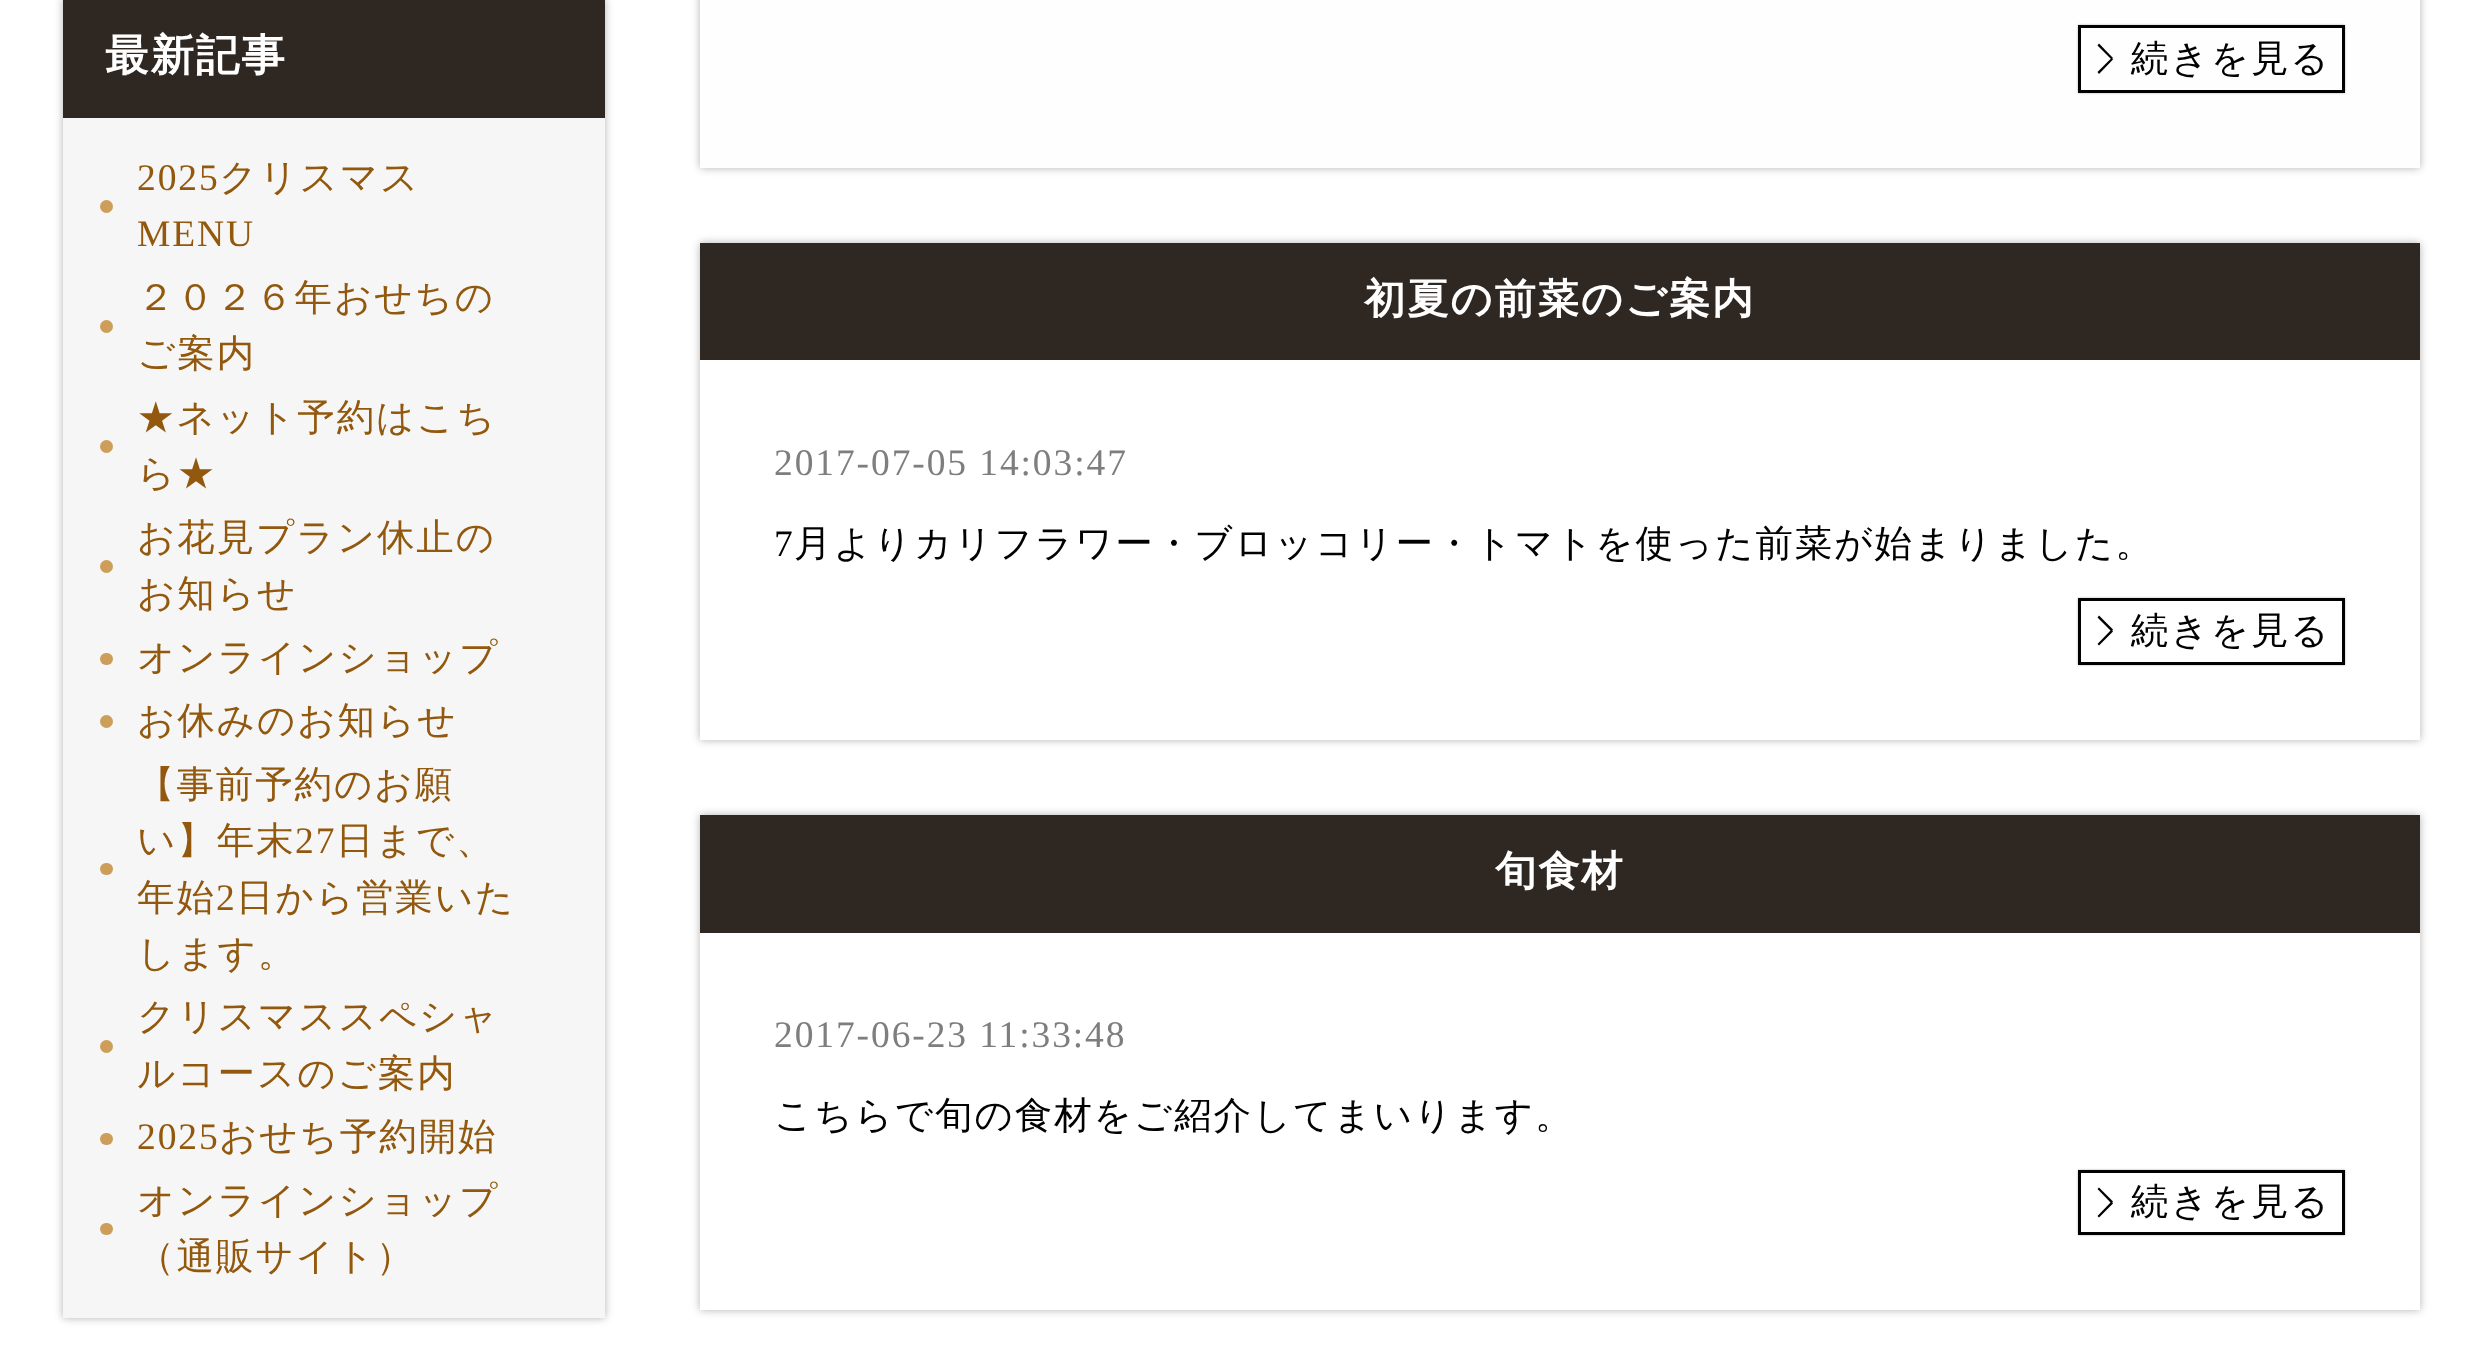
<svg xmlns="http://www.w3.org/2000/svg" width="2482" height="1345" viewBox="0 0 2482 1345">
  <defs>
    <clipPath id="clip1"><path d="M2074 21H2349V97H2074ZM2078 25H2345V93H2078Z" clip-rule="evenodd"/></clipPath>
    <clipPath id="clip2"><path d="M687 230H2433V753H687ZM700 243H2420V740H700Z" clip-rule="evenodd"/></clipPath>
    <clipPath id="clip3"><path d="M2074 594H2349V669H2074ZM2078 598H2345V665H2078Z" clip-rule="evenodd"/></clipPath>
    <clipPath id="clip4"><path d="M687 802H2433V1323H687ZM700 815H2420V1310H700Z" clip-rule="evenodd"/></clipPath>
    <clipPath id="clip5"><path d="M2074 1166H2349V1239H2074ZM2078 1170H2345V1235H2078Z" clip-rule="evenodd"/></clipPath>
  </defs>
  <rect width="100%" height="100%" fill="#fff"/>
  <path d="M63 -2h542v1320H63z" fill="#0000004d" filter="blur(4px)"/>
  <path d="M63 118h542v1200H63z" fill="#f6f6f6"/>
  <path d="M63 0h542v118H63z" fill="#2f2721"/>
  <circle cx="106.5" cy="206.5" r="6.5" fill="#cc9e5a"/>
  <circle cx="106.5" cy="326.5" r="6.5" fill="#cc9e5a"/>
  <circle cx="106.5" cy="446.5" r="6.5" fill="#cc9e5a"/>
  <circle cx="106.5" cy="566.5" r="6.5" fill="#cc9e5a"/>
  <rect x="100" y="653" width="13" height="12" rx="6" fill="#cc9e5a"/>
  <circle cx="106.5" cy="721.5" r="6.5" fill="#cc9e5a"/>
  <rect x="100" y="863" width="13" height="12" rx="6" fill="#cc9e5a"/>
  <circle cx="106.5" cy="1046.5" r="6.5" fill="#cc9e5a"/>
  <rect x="100" y="1133" width="13" height="12" rx="6" fill="#cc9e5a"/>
  <rect x="100" y="1223" width="13" height="12" rx="6" fill="#cc9e5a"/>
  <path d="M700 -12h1720v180H700z" fill="#0000004d" filter="blur(4px)"/>
  <path d="M700 0h1720v168H700z" fill="#fefefe"/>
  <g clip-path="url(#clip1)">
    <path d="M2078 25h267v68H2078z" fill="#0000004d" filter="blur(1px)"/>
  </g>
  <path d="M2079.5 26.5h264v65H2079.5z" fill="none" stroke="#010101" stroke-width="3"/>
  <path d="M2099 43.5L2113 58L2111.5 59.5L2097.5 45.5Z" fill="#010101"/>
  <path d="M2097.5 72L2111.5 58L2113 59.5L2099 74Z" fill="#010101"/>
  <g clip-path="url(#clip2)">
    <path d="M700 243h1720v497H700z" fill="#0000004d" filter="blur(4px)"/>
  </g>
  <path d="M700 243h1720v117H700z" fill="#2f2721"/>
  <g clip-path="url(#clip3)">
    <path d="M2078 598h267v67H2078z" fill="#0000004d" filter="blur(1px)"/>
  </g>
  <path d="M2079.5 599.5h264v64H2079.5z" fill="none" stroke="#010101" stroke-width="3"/>
  <path d="M2099 615.5L2113 629.5L2111.5 631.5L2097.5 617.5Z" fill="#010101"/>
  <path d="M2097.5 644L2111.5 629.5L2113 631.5L2099 645.5Z" fill="#010101"/>
  <g clip-path="url(#clip4)">
    <path d="M700 815h1720v495H700z" fill="#0000004d" filter="blur(4px)"/>
  </g>
  <path d="M700 815h1720v118H700z" fill="#2f2721"/>
  <g clip-path="url(#clip5)">
    <path d="M2078 1170h267v65H2078z" fill="#0000004d" filter="blur(1px)"/>
  </g>
  <path d="M2079.5 1171.5h264v62H2079.5z" fill="none" stroke="#010101" stroke-width="3"/>
  <path d="M2099 1187.5L2113 1201.5L2111.5 1203.5L2097.5 1189Z" fill="#010101"/>
  <path d="M2097.5 1216L2111.5 1201.5L2113 1203.5L2099 1217.5Z" fill="#010101"/>
  <text x="105" y="70" font-family="WenQuanYi Zen Hei" font-size="43.5" font-weight="bold" letter-spacing="1.9" fill="#fff">最新記事</text>
  <text x="137" y="190" font-family="Liberation Serif" font-size="37.5" letter-spacing="1.9" fill="#92580d">2025</text>
  <text x="219" y="190" font-family="WenQuanYi Zen Hei" font-size="37.5" font-weight="500" letter-spacing="1.9" fill="#92580d">クリスマス</text>
  <text x="137" y="246" font-family="Liberation Serif" font-size="37.5" letter-spacing="1.9" fill="#92580d">MENU</text>
  <g font-family="WenQuanYi Zen Hei" font-size="37.5" font-weight="500" letter-spacing="1.9" fill="#92580d">
    <text x="137" y="310">２０２６年おせちの</text>
    <text x="137" y="366">ご案内</text>
    <text x="137" y="430">★ネット予約はこち</text>
    <text x="137" y="486">ら★</text>
    <text x="137" y="550">お花見プラン休止の</text>
    <text x="137" y="606">お知らせ</text>
    <text x="137" y="670">オンラインショップ</text>
    <text x="137" y="733">お休みのお知らせ</text>
    <text x="137" y="797">【事前予約のお願</text>
    <text x="137" y="853">い】年末</text>
  </g>
  <text x="295" y="853" font-family="Liberation Serif" font-size="37.5" letter-spacing="1.9" fill="#92580d">27</text>
  <g font-family="WenQuanYi Zen Hei" font-size="37.5" font-weight="500" letter-spacing="1.9" fill="#92580d">
    <text x="336" y="853">日まで、</text>
    <text x="137" y="910">年始</text>
  </g>
  <text x="216" y="910" font-family="Liberation Serif" font-size="37.5" letter-spacing="1.9" fill="#92580d">2</text>
  <g font-family="WenQuanYi Zen Hei" font-size="37.5" font-weight="500" letter-spacing="1.9" fill="#92580d">
    <text x="236" y="910">日から営業いた</text>
    <text x="137" y="966">します。</text>
    <text x="137" y="1029">クリスマススペシャ</text>
    <text x="137" y="1086">ルコースのご案内</text>
  </g>
  <text x="137" y="1149" font-family="Liberation Serif" font-size="37.5" letter-spacing="1.9" fill="#92580d">2025</text>
  <g font-family="WenQuanYi Zen Hei" font-size="37.5" font-weight="500" letter-spacing="1.9" fill="#92580d">
    <text x="219" y="1149">おせち予約開始</text>
    <text x="137" y="1213">オンラインショップ</text>
    <text x="137" y="1269">（通販サイト）</text>
  </g>
  <text x="2131" y="71" font-family="WenQuanYi Zen Hei" font-size="37.5" font-weight="500" letter-spacing="1.9" fill="#010101">続きを見る</text>
  <text x="1364" y="313" font-family="WenQuanYi Zen Hei" font-size="41.25" font-weight="bold" letter-spacing="1.9" fill="#fff">初夏の前菜のご案内</text>
  <text x="774" y="475" font-family="Liberation Serif" font-size="37.5" letter-spacing="1.9" fill="#7e7e7e">2017-07-05 14:03:47</text>
  <text x="774" y="556" font-family="Liberation Serif" font-size="37.5" letter-spacing="1.9" fill="#010101">7</text>
  <g font-family="WenQuanYi Zen Hei" font-size="37.5" font-weight="500" letter-spacing="1.9" fill="#010101">
    <text x="794" y="556">月よりカリフラワー・ブロッコリー・トマトを使った前菜が始まりました。</text>
    <text x="2131" y="643">続きを見る</text>
  </g>
  <text x="1495" y="885" font-family="WenQuanYi Zen Hei" font-size="41.25" font-weight="bold" letter-spacing="1.9" fill="#fff">旬食材</text>
  <text x="774" y="1047" font-family="Liberation Serif" font-size="37.5" letter-spacing="1.9" fill="#7e7e7e">2017-06-23 11:33:48</text>
  <g font-family="WenQuanYi Zen Hei" font-size="37.5" font-weight="500" letter-spacing="1.9" fill="#010101">
    <text x="774" y="1128">こちらで旬の食材をご紹介してまいります。</text>
    <text x="2131" y="1214">続きを見る</text>
  </g>
</svg>
